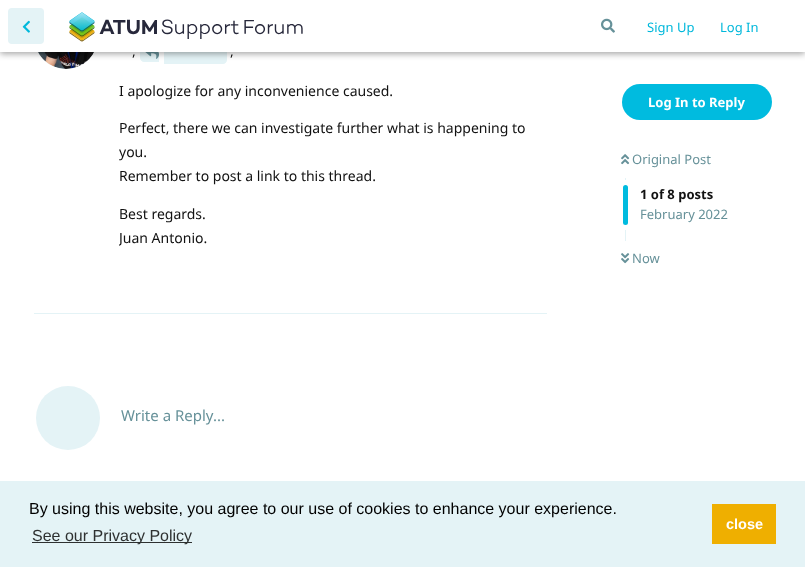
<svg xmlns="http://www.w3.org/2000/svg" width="805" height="567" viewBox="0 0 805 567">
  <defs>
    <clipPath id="clip1"><path d="M119 39h428v224H119z"/></clipPath>
  </defs>
  <rect width="100%" height="100%" fill="#fff"/>
  <circle cx="66" cy="37" r="32" fill="#e4f3f6"/>
  <image x="38" y="52" width="56" height="17" href="img/4.png"/>
  <path d="M144 44H159V62H144C142 62 140 60 140 58V48C140 46 142 44 144 44Z" fill="#e4f3f6"/>
  <path d="M164 41H223C225 41 227 43 227 45V60C227 62 225 64 223 64H164Z" fill="#e4f3f6"/>
  <image x="145" y="52" width="14" height="7" href="img/5.png"/>
  <path d="M0 2h805v52H0z" fill="#00000059" filter="blur(3px)"/>
  <path d="M0 0h805v52H0z" fill="#fff"/>
  <rect x="8" y="8" width="36" height="36" rx="4" fill="#e4f3f6"/>
  <image x="22" y="20" width="8" height="13" href="img/1.png"/>
  <image x="69" y="12" width="234" height="30" href="img/2.png"/>
  <image x="601" y="18" width="14" height="15" href="img/3.png"/>
  <path d="M34 313h513v1H34z" fill="#e4f3f6"/>
  <circle cx="68" cy="418" r="32" fill="#e4f3f6"/>
  <rect x="622" y="84" width="150" height="36" rx="18" fill="#00bbdf"/>
  <image x="621" y="154" width="9" height="11" href="img/6.png"/>
  <path d="M625 178h1v2H625z" fill="#e4f3f6"/>
  <rect x="623" y="185" width="5" height="40" rx="2.5" fill="#00bbdf"/>
  <path d="M625 230h1v11H625z" fill="#e4f3f6"/>
  <image x="621" y="253" width="9" height="11" href="img/7.png"/>
  <path d="M0 481h805v86H0z" fill="#e4f3f6"/>
  <path d="M32 542h160v1H32z" fill="#2e3131"/>
  <path d="M712 504h64v40H712z" fill="#efaf00"/>
  <g font-family="Noto Sans" font-size="13" fill="#00b8db">
    <text x="647" y="32">Sign Up</text>
    <text x="720" y="32">Log In</text>
  </g>
  <g font-family="Noto Sans" font-size="14" fill="#111">
    <text x="132" y="56">,</text>
    <text x="230" y="56">,</text>
    <text x="119" y="96">I apologize for any inconvenience caused.</text>
    <text x="119" y="133">Perfect, there we can investigate further what is happening to</text>
  </g>
  <g clip-path="url(#clip1)">
    <text x="119" y="157" font-family="Noto Sans" font-size="14" fill="#111">you.</text>
  </g>
  <g font-family="Noto Sans" font-size="14" fill="#111">
    <text x="119" y="181">Remember to post a link to this thread.</text>
    <text x="119" y="219">Best regards.</text>
  </g>
  <g clip-path="url(#clip1)">
    <text x="119" y="243" font-family="Noto Sans" font-size="14" fill="#111">Juan Antonio.</text>
  </g>
  <text x="121" y="421" font-family="Noto Sans" font-size="15" fill="#669199">Write a Reply...</text>
  <text x="648" y="107" font-family="Noto Sans" font-size="13" font-weight="bold" fill="#fff">Log In to Reply</text>
  <text x="632" y="164" font-family="Noto Sans" font-size="13" fill="#669199">Original Post</text>
  <text x="640" y="199" font-family="Noto Sans" font-size="13" font-weight="bold" fill="#111">1 of 8 posts</text>
  <g font-family="Noto Sans" font-size="13" fill="#669199">
    <text x="640" y="219">February 2022</text>
    <text x="632" y="263">Now</text>
  </g>
  <text x="29" y="514" font-family="Liberation Sans" font-size="16" fill="#000">By using this website, you agree to our use of cookies to enhance your experience.</text>
  <text x="32" y="541" font-family="Liberation Sans" font-size="16" fill="#2e3131">See our Privacy Policy</text>
  <text x="726" y="529" font-family="Liberation Sans" font-size="14.5" font-weight="bold" fill="#fff">close</text>
</svg>
